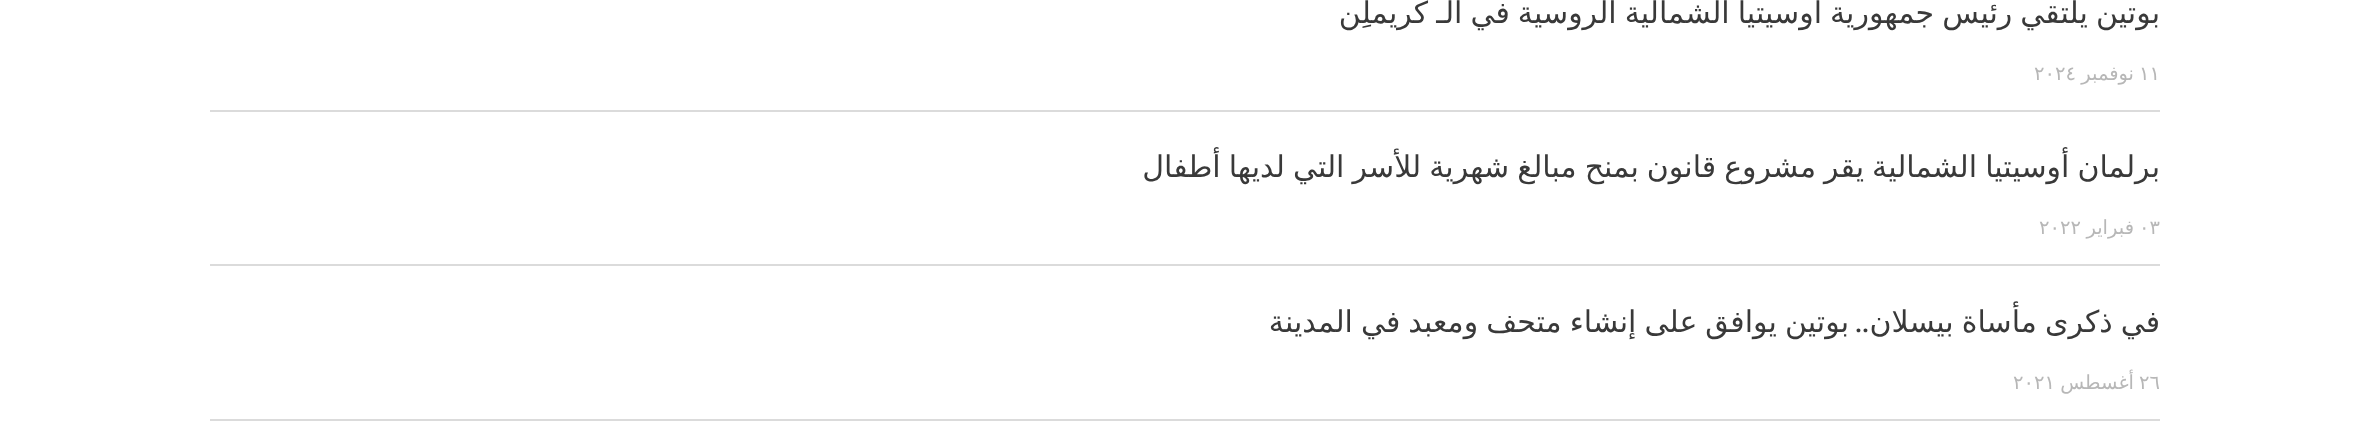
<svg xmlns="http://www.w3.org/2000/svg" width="2369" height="438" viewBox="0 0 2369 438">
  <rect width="100%" height="100%" fill="#fff"/>
  <path d="M210 110h1950v2H210z" fill="#dbdbdb"/>
  <path d="M210 264h1950v2H210z" fill="#dbdbdb"/>
  <path d="M210 419h1950v2H210z" fill="#dbdbdb"/>
  <text x="2160" y="23" word-spacing="-1.5" font-family="DejaVu Sans" font-size="30" direction="rtl" fill="#393939">بوتين يلتقي رئيس جمهورية أوسيتيا الشمالية الروسية في الـ كريملِن</text>
  <text x="2139" y="80" font-family="DejaVu Sans" font-size="19.5" fill="#b7b7b7">١١</text>
  <text x="2134" y="80" font-family="DejaVu Sans" font-size="19.5" direction="rtl" fill="#b7b7b7">نوفمبر</text>
  <text x="2034" y="80" font-family="DejaVu Sans" font-size="19.5" fill="#b7b7b7">٢٠٢٤</text>
  <text x="2160" y="177" word-spacing="-1.5" font-family="DejaVu Sans" font-size="30" direction="rtl" fill="#393939">برلمان أوسيتيا الشمالية يقر مشروع قانون بمنح مبالغ شهرية للأسر التي لديها أطفال</text>
  <text x="2139" y="234" font-family="DejaVu Sans" font-size="19.5" fill="#b7b7b7">٠٣</text>
  <text x="2134" y="234" font-family="DejaVu Sans" font-size="19.5" direction="rtl" fill="#b7b7b7">فبراير</text>
  <text x="2039" y="234" font-family="DejaVu Sans" font-size="19.5" fill="#b7b7b7">٢٠٢٢</text>
  <text x="2160" y="332" word-spacing="-1.5" font-family="DejaVu Sans" font-size="30" direction="rtl" fill="#393939">في ذكرى مأساة بيسلان</text>
  <text x="1869" y="332" font-family="Fira Sans" font-size="30" direction="rtl" fill="#393939">..</text>
  <text x="1849" y="332" word-spacing="-1.5" font-family="DejaVu Sans" font-size="30" direction="rtl" fill="#393939">بوتين يوافق على إنشاء متحف ومعبد في المدينة</text>
  <text x="2139" y="389" font-family="DejaVu Sans" font-size="19.5" fill="#b7b7b7">٢٦</text>
  <text x="2134" y="389" font-family="DejaVu Sans" font-size="19.5" direction="rtl" fill="#b7b7b7">أغسطس</text>
  <text x="2013" y="389" font-family="DejaVu Sans" font-size="19.5" fill="#b7b7b7">٢٠٢١</text>
</svg>
